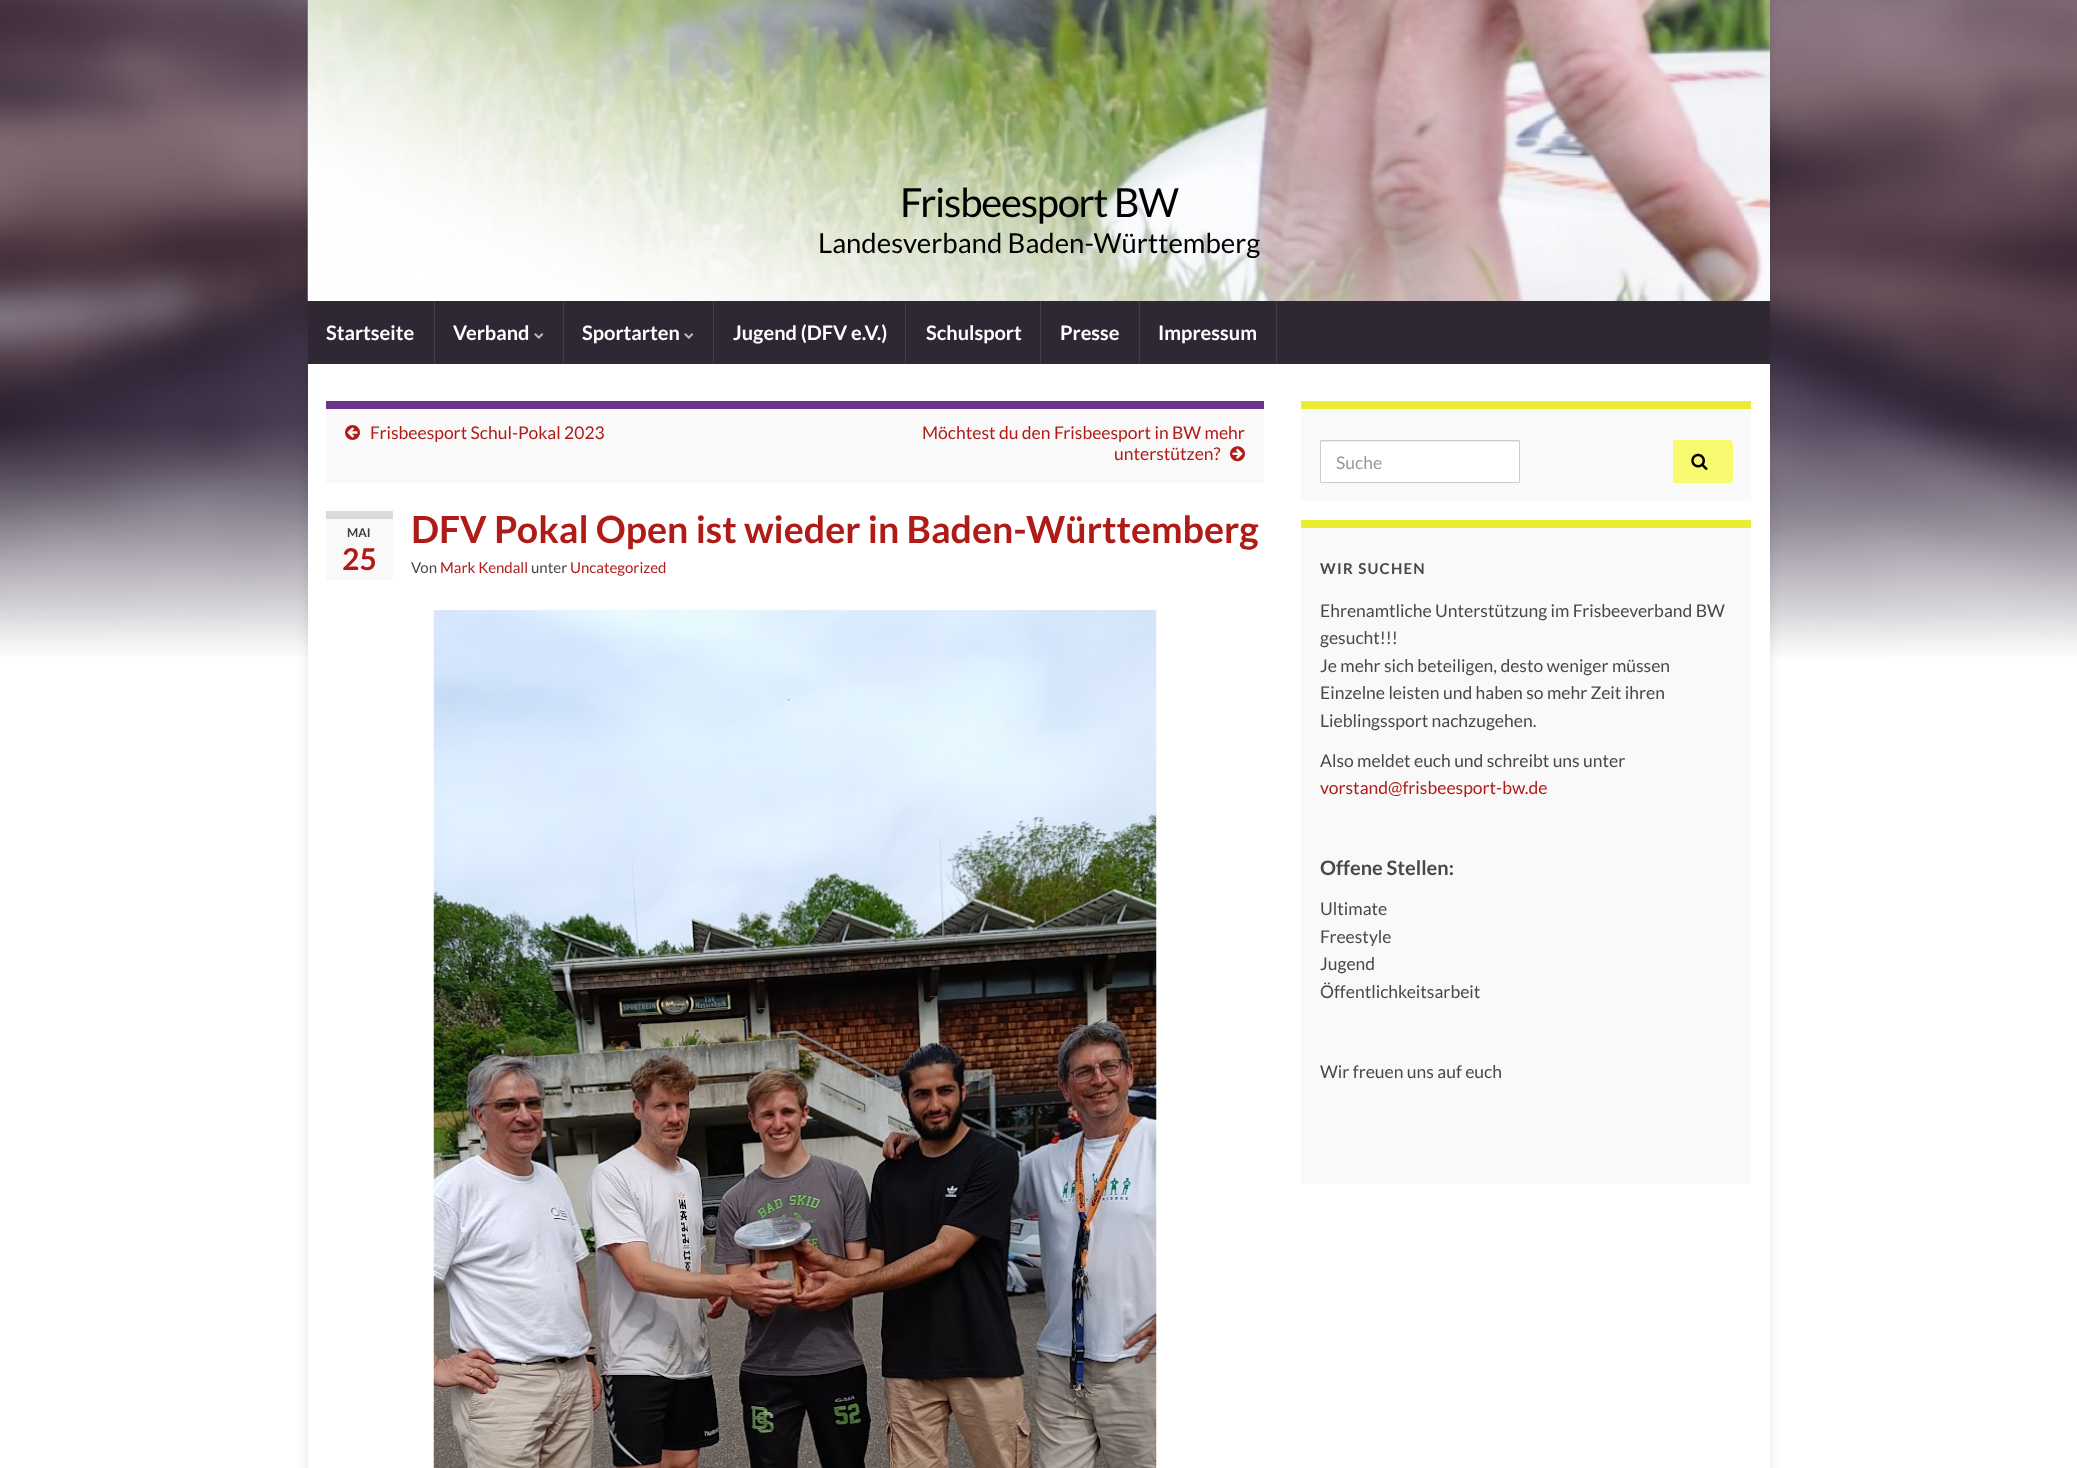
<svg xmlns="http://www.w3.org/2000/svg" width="2077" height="1468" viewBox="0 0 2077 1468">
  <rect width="100%" height="100%" fill="#fff"/>
  <image x="0" y="0" width="2077" height="657" href="img/1.png"/>
  <path d="M308 0h1462v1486H308z" fill="#0000001a" filter="blur(6px)"/>
  <image x="307" y="0" width="1463" height="301" href="img/2.png"/>
  <path d="M308 301h1462v63H308z" fill="#2f2733"/>
  <path d="M434 301h1v63H434z" fill="#443d47"/>
  <path d="M563 301h1v63H563z" fill="#443d47"/>
  <image x="534" y="333" width="10" height="6" href="img/3.png"/>
  <path d="M713 301h1v63H713z" fill="#443d47"/>
  <image x="684" y="333" width="10" height="6" href="img/3.png"/>
  <path d="M905 301h1v63H905z" fill="#443d47"/>
  <path d="M1040 301h1v63H1040z" fill="#443d47"/>
  <path d="M1139 301h1v63H1139z" fill="#443d47"/>
  <path d="M1276 301h1v63H1276z" fill="#443d47"/>
  <path d="M308 364h1462v1104H308z" fill="#fff"/>
  <path d="M326 409h938v74H326z" fill="#f9f9f9"/>
  <path d="M326 401h938v8H326z" fill="#6b3589"/>
  <image x="345" y="425" width="15" height="15" href="img/4.png"/>
  <image x="1230" y="446" width="15" height="16" href="img/5.png"/>
  <path d="M326 519h67v61H326z" fill="#f9f9f9"/>
  <path d="M326 511h67v8H326z" fill="#dbdbdb"/>
  <image x="433" y="610" width="724" height="858" href="img/6.png"/>
  <path d="M1301 409h450v92H1301z" fill="#f9f9f9"/>
  <path d="M1301 401h450v8H1301z" fill="#e9ec2f"/>
  <path d="M1321 442h198v40H1321z" fill="#fff"/>
  <path d="M1321 441h198v1H1321z" fill="#ececec"/>
  <path d="M1320.5 440.5h199v42H1320.5z" fill="none" stroke="#ccc"/>
  <path d="M1673 440H1729C1731 440 1733 442 1733 444V479C1733 481 1731 483 1729 483H1673Z" fill="#f7f96e"/>
  <image x="1691" y="453" width="17" height="17" href="img/7.png"/>
  <path d="M1301 528h450v656H1301z" fill="#f9f9f9"/>
  <path d="M1301 520h450v8H1301z" fill="#e9ec2f"/>
  <text x="900" y="217" font-family="Lato" font-size="40" letter-spacing="-1.25" fill="#000">Frisbeesport BW</text>
  <text x="818" y="253" font-family="Lato" font-size="27.5" fill="#000">Landesverband Baden-Württemberg</text>
  <g font-family="Lato" font-size="20" font-weight="bold" fill="#fff">
    <text x="326" y="340">Startseite</text>
    <text x="453" y="340">Verband</text>
    <text x="582" y="340">Sportarten</text>
    <text x="733" y="340">Jugend (DFV e.V.)</text>
    <text x="926" y="340">Schulsport</text>
    <text x="1060" y="340">Presse</text>
    <text x="1158" y="340">Impressum</text>
  </g>
  <g font-family="Lato" font-size="17.5" fill="#af1c17">
    <text x="370" y="439">Frisbeesport Schul-Pokal 2023</text>
    <text x="922" y="439">Möchtest du den Frisbeesport in BW mehr</text>
    <text x="1114" y="460">unterstützen?</text>
  </g>
  <text x="347" y="537" font-family="Lato" font-size="12" font-weight="bold" fill="#3b383d">MAI</text>
  <text x="342" y="570" font-family="Lato" font-size="30" font-weight="bold" fill="#af1c17">25</text>
  <text x="411" y="543" font-family="Lato" font-size="37.5" font-weight="bold" fill="#af1c17">DFV Pokal Open ist wieder in Baden-Württemberg</text>
  <text x="411" y="573" font-family="Lato" font-size="15" fill="#4a474b">Von</text>
  <text x="440" y="573" font-family="Lato" font-size="15" fill="#af1c17">Mark Kendall</text>
  <text x="531" y="573" font-family="Lato" font-size="15" fill="#4a474b">unter</text>
  <text x="570" y="573" font-family="Lato" font-size="15" fill="#af1c17">Uncategorized</text>
  <text x="1336" y="469" font-family="Lato" font-size="17.5" fill="#999">Suche</text>
  <text x="1320" y="574" font-family="Lato" font-size="15" font-weight="bold" letter-spacing="1.25" fill="#4a474b">WIR SUCHEN</text>
  <g font-family="Lato" font-size="17.5" fill="#4a474b">
    <text x="1320" y="617">Ehrenamtliche Unterstützung im Frisbeeverband BW</text>
    <text x="1320" y="644">gesucht!!!</text>
    <text x="1320" y="672">Je mehr sich beteiligen, desto weniger müssen</text>
    <text x="1320" y="699">Einzelne leisten und haben so mehr Zeit ihren</text>
    <text x="1320" y="727">Lieblingssport nachzugehen.</text>
    <text x="1320" y="767">Also meldet euch und schreibt uns unter</text>
  </g>
  <text x="1320" y="794" font-family="Lato" font-size="17.5" fill="#af1c17">vorstand@frisbeesport-bw.de</text>
  <text x="1320" y="875" font-family="Lato" font-size="20" font-weight="bold" fill="#4a474b">Offene Stellen:</text>
  <g font-family="Lato" font-size="17.5" fill="#4a474b">
    <text x="1320" y="915">Ultimate</text>
    <text x="1320" y="943">Freestyle</text>
    <text x="1320" y="970">Jugend</text>
    <text x="1320" y="998">Öffentlichkeitsarbeit</text>
    <text x="1320" y="1078">Wir freuen uns auf euch</text>
  </g>
</svg>
